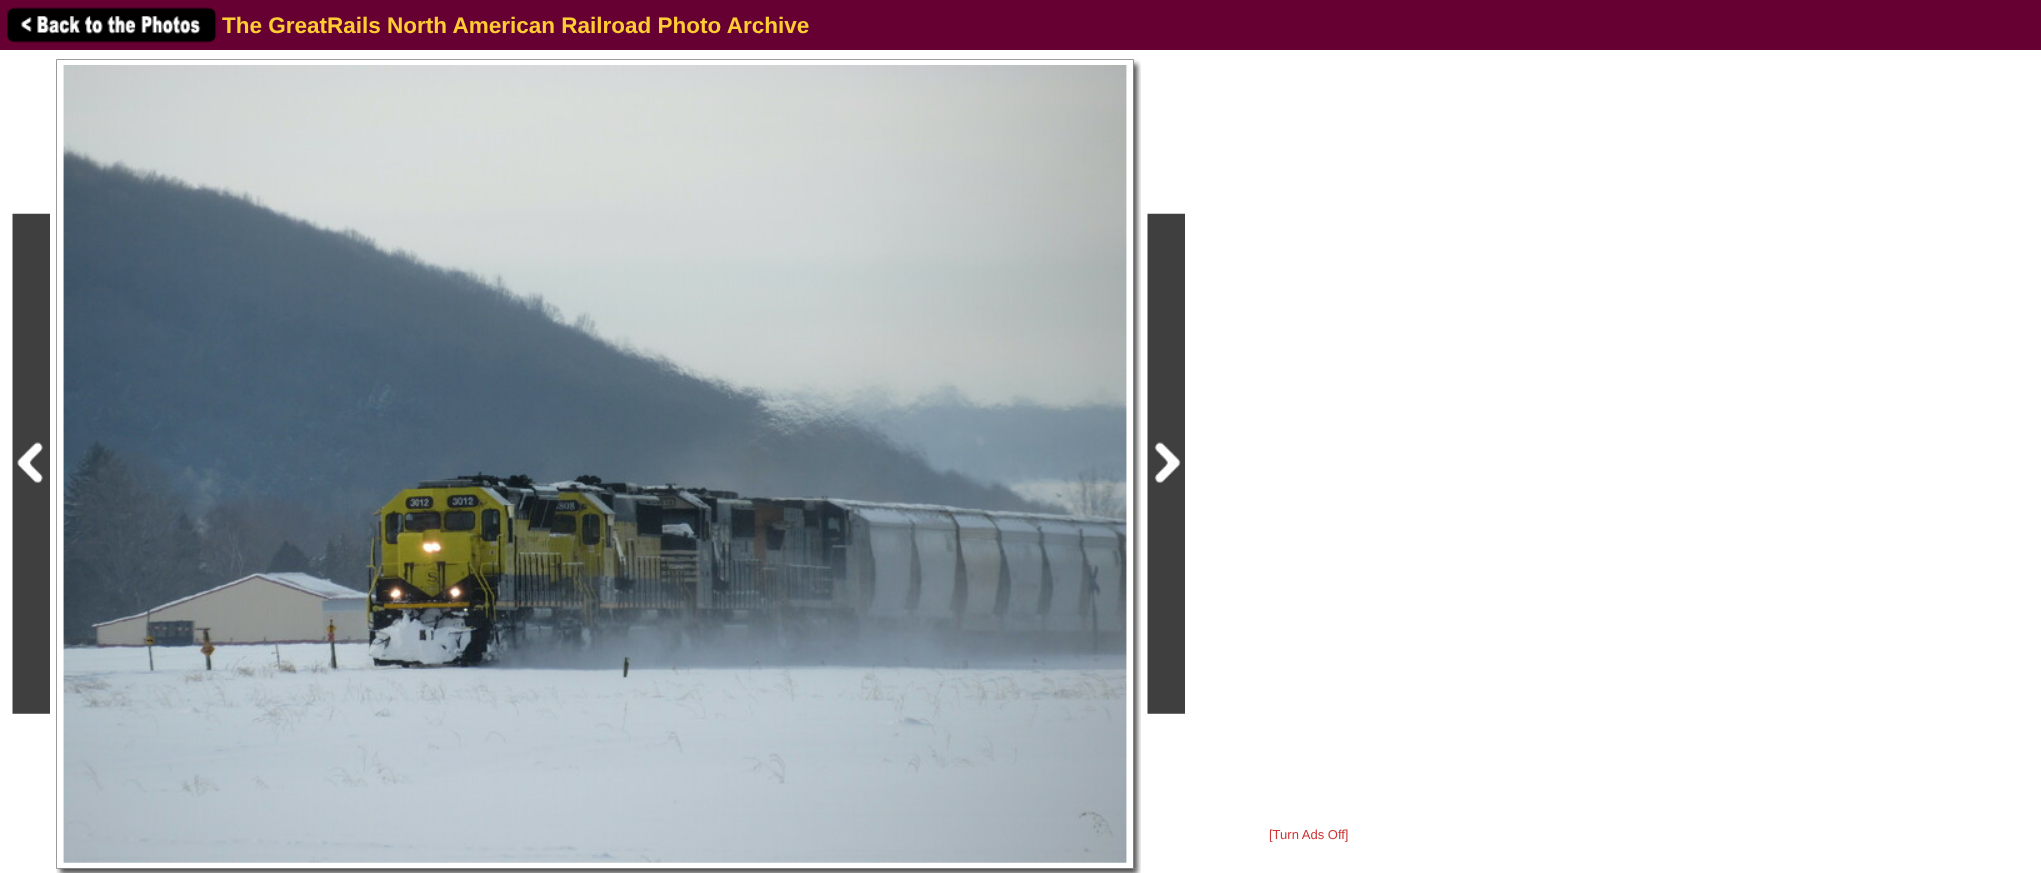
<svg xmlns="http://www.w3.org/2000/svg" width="2041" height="873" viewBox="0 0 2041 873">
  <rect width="100%" height="100%" fill="#fff"/>
  <path d="M0 0h2041v50H0z" fill="#603"/>
  <image x="7" y="7" width="210" height="36" href="img/1.png"/>
  <image x="12" y="213" width="38" height="501" href="img/2.png"/>
  <path d="M56.5 59.5h1077v809H56.5z" fill="none" stroke="#9a9a9a"/>
  <image x="63" y="65" width="1064" height="798" href="img/3.png"/>
  <image x="63" y="65" width="1064" height="798" href="img/4.png"/>
  <image x="1133" y="59" width="8" height="810" href="img/5.png"/>
  <image x="1147" y="213" width="38" height="501" href="img/6.png"/>
  <image x="56" y="868" width="1078" height="5" href="img/7.png"/>
  <image x="1133" y="868" width="8" height="5" href="img/8.png"/>
  <text x="222" y="33" font-family="Liberation Sans" font-size="22.5" font-weight="bold" fill="#fc3">The GreatRails North American Railroad Photo Archive</text>
  <text x="1269" y="839" font-family="Liberation Sans" font-size="13" fill="#c33">[Turn Ads Off]</text>
</svg>
